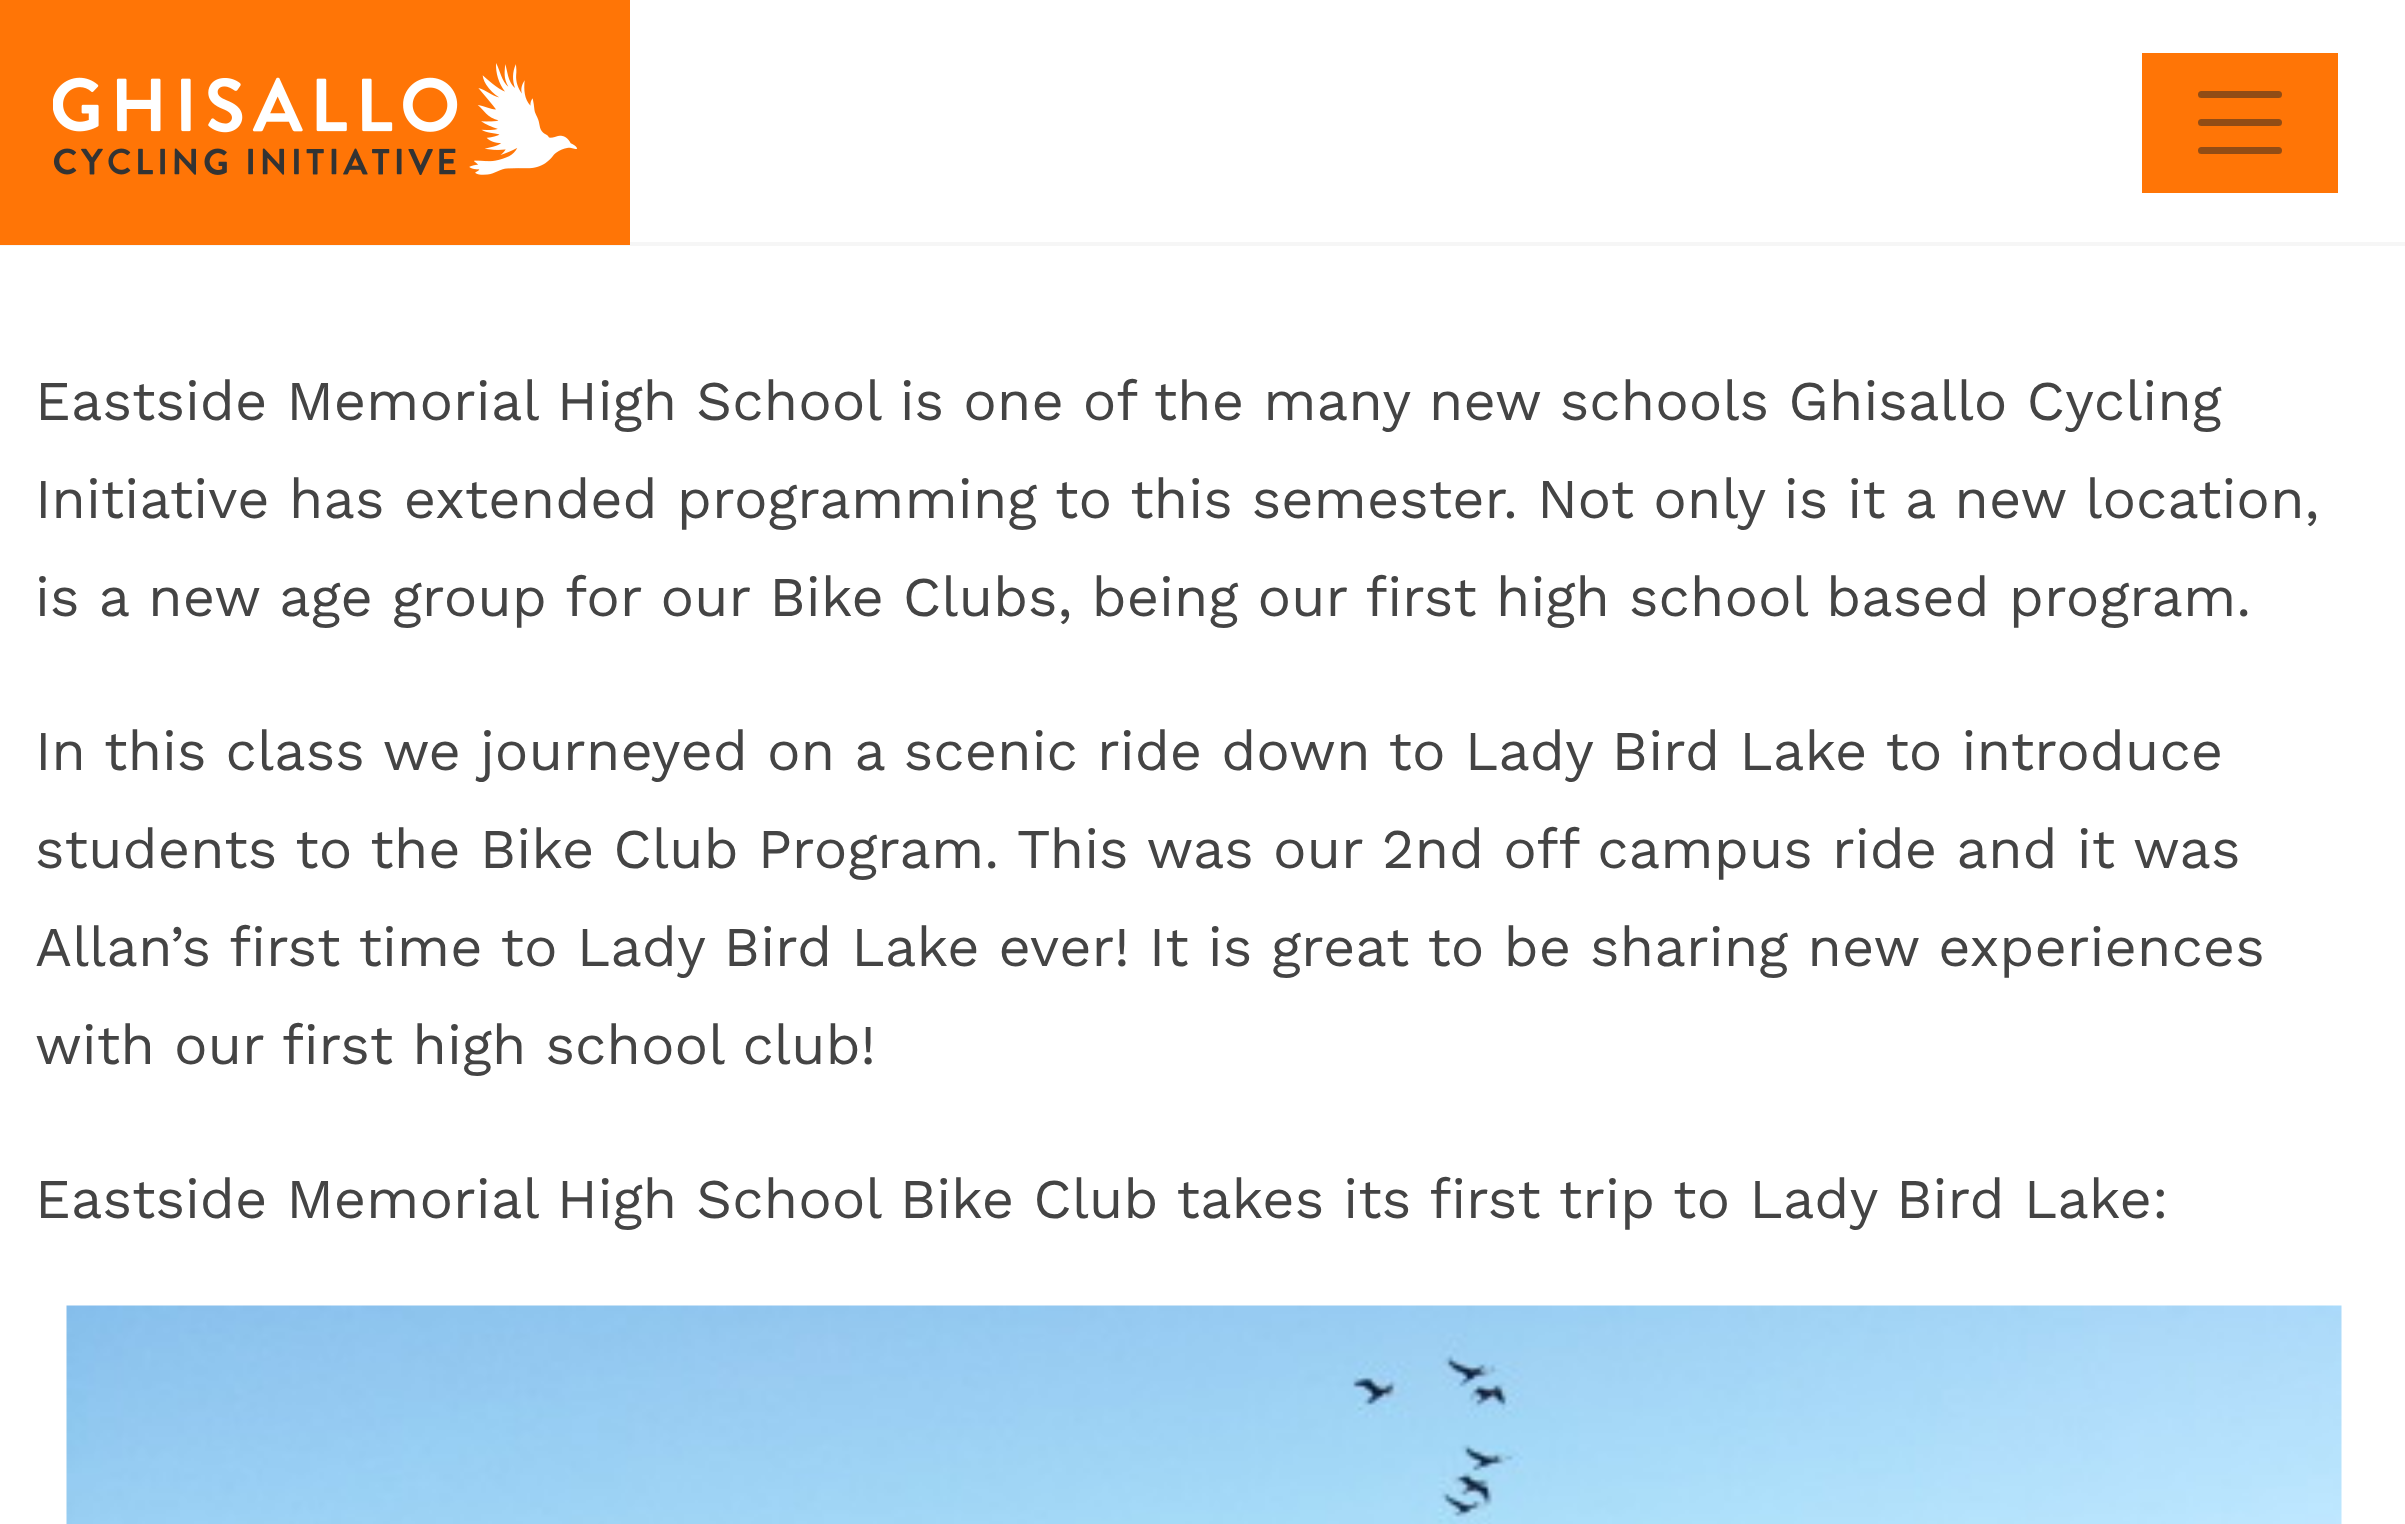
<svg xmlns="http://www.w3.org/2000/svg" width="2405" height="1524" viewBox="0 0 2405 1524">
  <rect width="100%" height="100%" fill="#fff"/>
  <path d="M0 242h2405v4H0z" fill="#f6f6f6"/>
  <path d="M0 0h630v245H0z" fill="#ff7506"/>
  <image x="53" y="63" width="525" height="112" href="img/1.png"/>
  <path d="M2142 53h196v140H2142z" fill="#ff7506"/>
  <path d="M2201.5 94.5H2278.5M2201.5 122.5H2278.5M2201.5 150.5H2278.5" fill="none" stroke="#914c15" stroke-width="7" stroke-linecap="round"/>
  <image x="66" y="1305" width="2276" height="219" href="img/2.png"/>
  <g font-family="Work Sans" font-size="56" fill="#444">
    <text x="35" y="420">Eastside Memorial High School is one of the many new schools Ghisallo Cycling</text>
    <text x="35" y="518">Initiative has extended programming to this semester. Not only is it a new location,</text>
    <text x="35" y="616">is a new age group for our Bike Clubs, being our first high school based program.</text>
    <text x="35" y="770">In this class we journeyed on a scenic ride down to Lady Bird Lake to introduce</text>
    <text x="35" y="868">students to the Bike Club Program. This was our 2nd off campus ride and it was</text>
    <text x="35" y="966">Allan’s first time to Lady Bird Lake ever! It is great to be sharing new experiences</text>
    <text x="35" y="1064">with our first high school club!</text>
    <text x="35" y="1218">Eastside Memorial High School Bike Club takes its first trip to Lady Bird Lake:</text>
  </g>
</svg>
